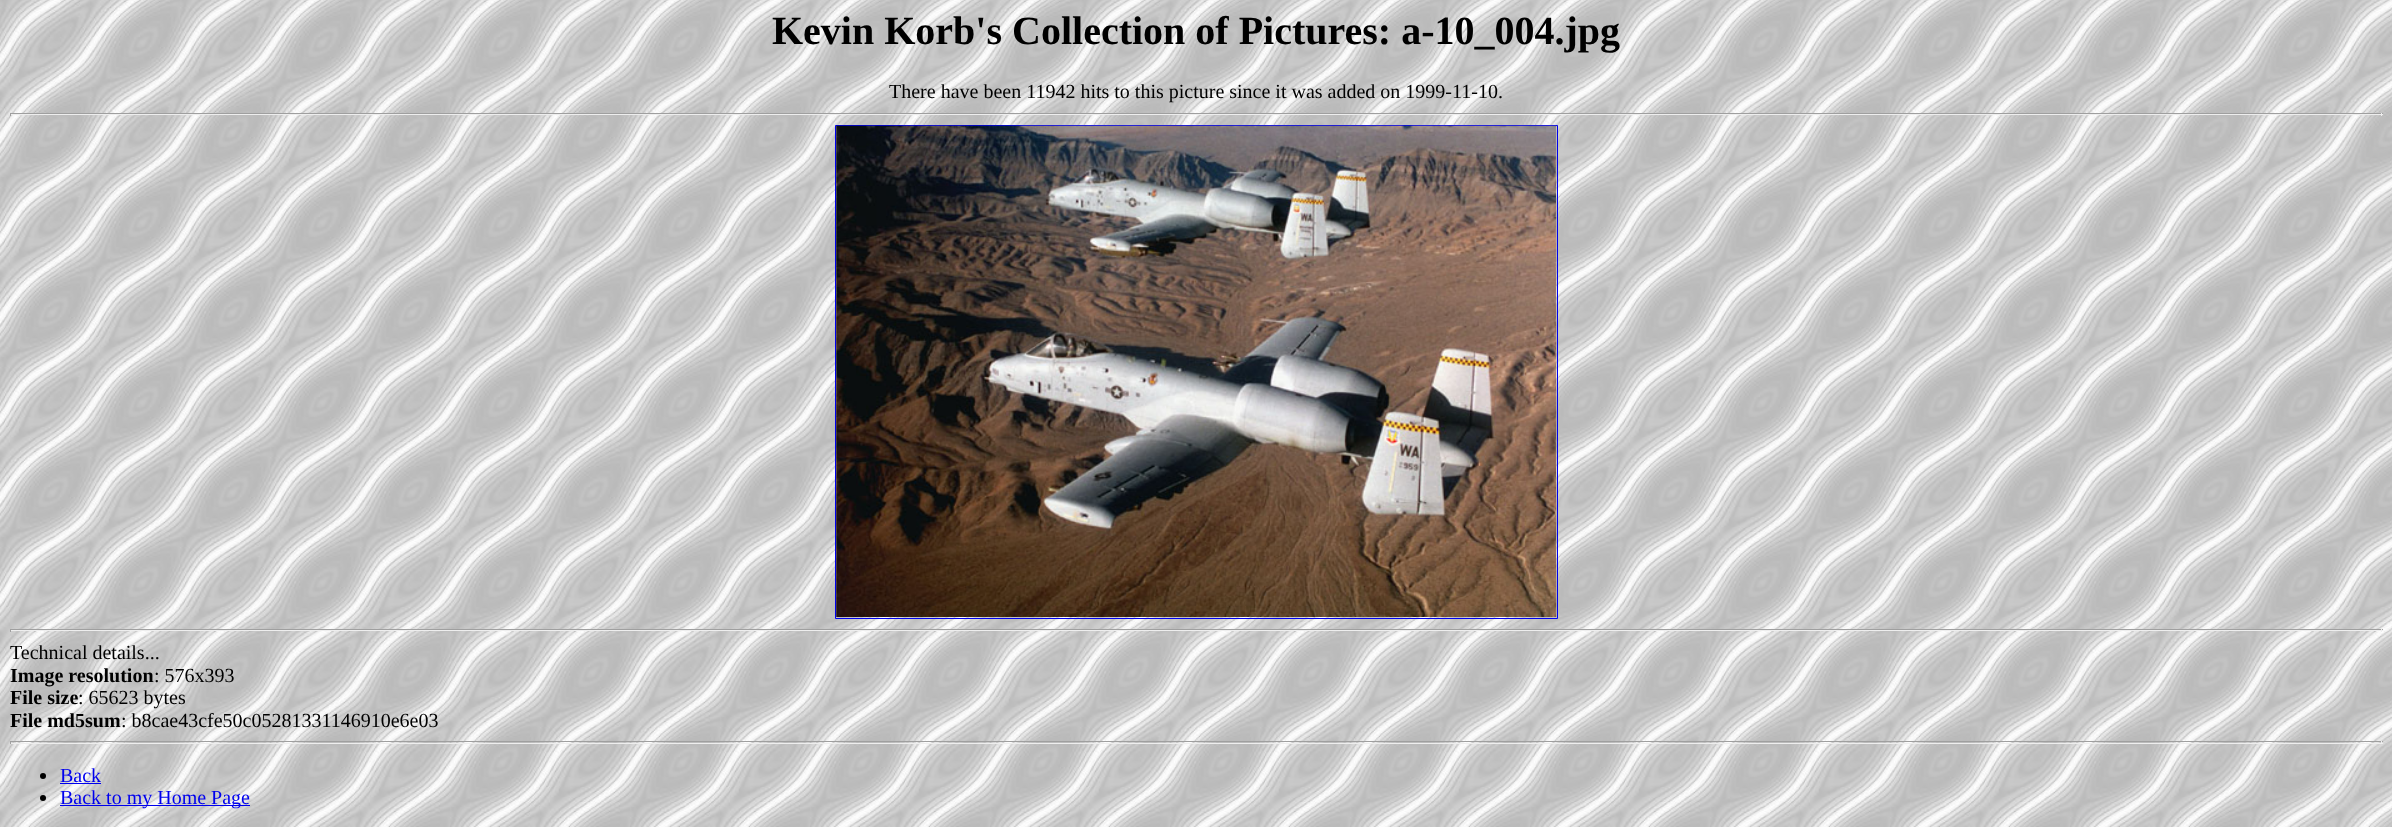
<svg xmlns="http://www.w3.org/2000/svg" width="2392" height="827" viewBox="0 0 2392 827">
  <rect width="100%" height="100%" fill="#fff"/>
  <image x="0" y="0" width="2392" height="827" href="img/1.png"/>
  <path d="M10 113h2373v1H10z" fill="#9f9f9f"/>
  <path d="M2381 113h1v3H2381z" fill="#eee"/>
  <path d="M10 114h2373v1H10z" fill="#eee"/>
  <path d="M10 113h1v3H10z" fill="#9f9f9f"/>
  <path d="M835.5 125.5h722v493H835.5z" fill="none" stroke="#00e"/>
  <image x="836" y="125" width="721" height="492" href="img/2.png"/>
  <path d="M10 629h2373v1H10z" fill="#9f9f9f"/>
  <path d="M2381 629h1v3H2381z" fill="#eee"/>
  <path d="M10 630h2373v1H10z" fill="#eee"/>
  <path d="M10 629h1v3H10z" fill="#9f9f9f"/>
  <path d="M10 741h2373v1H10z" fill="#9f9f9f"/>
  <path d="M2381 741h1v3H2381z" fill="#eee"/>
  <path d="M10 743h2373v1H10z" fill="#eee"/>
  <path d="M10 741h1v3H10z" fill="#9f9f9f"/>
  <circle cx="43" cy="776" r="3" fill="#000"/>
  <path d="M60 783h41v1H60z" fill="#00e"/>
  <circle cx="43" cy="798" r="3" fill="#000"/>
  <path d="M60 805h190v1H60z" fill="#00e"/>
  <text x="772" y="44" font-family="Liberation Serif" font-size="40" font-weight="bold" fill="#000">Kevin Korb's Collection of Pictures: a-10_004.jpg</text>
  <g font-family="Liberation Serif" font-size="20" fill="#000">
    <text x="889" y="98">There have been 11942 hits to this picture since it was added on 1999-11-10.</text>
    <text x="10" y="659">Technical details...</text>
  </g>
  <text x="10" y="682" font-family="Liberation Serif" font-size="20" font-weight="bold" fill="#000">Image resolution</text>
  <text x="154" y="682" font-family="Liberation Serif" font-size="20" fill="#000">: 576x393</text>
  <text x="10" y="704" font-family="Liberation Serif" font-size="20" font-weight="bold" fill="#000">File size</text>
  <text x="78" y="704" font-family="Liberation Serif" font-size="20" fill="#000">: 65623 bytes</text>
  <text x="10" y="727" font-family="Liberation Serif" font-size="20" font-weight="bold" fill="#000">File md5sum</text>
  <text x="121" y="727" font-family="Liberation Serif" font-size="20" fill="#000">: b8cae43cfe50c05281331146910e6e03</text>
  <g font-family="Liberation Serif" font-size="20" fill="#00e">
    <text x="60" y="782">Back</text>
    <text x="60" y="804">Back to my Home Page</text>
  </g>
</svg>
